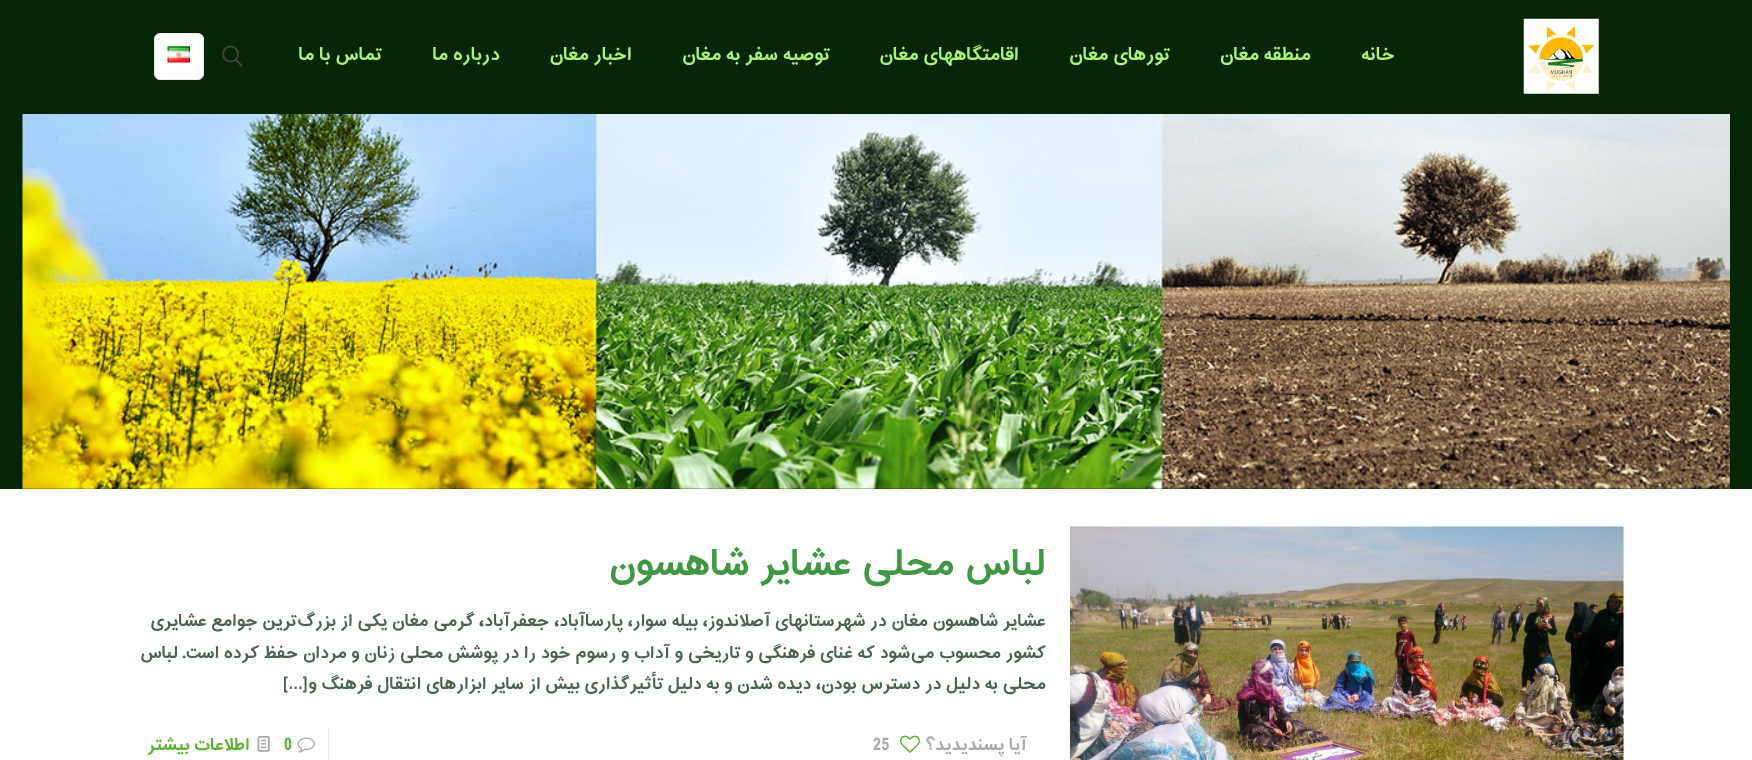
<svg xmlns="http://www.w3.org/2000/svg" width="1752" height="760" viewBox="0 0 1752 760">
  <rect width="100%" height="100%" fill="#fff"/>
  <path d="M0 0h1752v489H0z" fill="#052606"/>
  <image x="22" y="114" width="1708" height="375" href="img/1.png"/>
  <image x="1523" y="18" width="76" height="76" href="img/2.png"/>
  <circle cx="230.5" cy="54" r="7.5" fill="none" stroke="#444" stroke-width="1.9"/>
  <path d="M235.5 59.5L242 66" fill="none" stroke="#444" stroke-width="1.9"/>
  <rect x="154.5" y="33.5" width="49" height="46" rx="5.5" fill="#fff" stroke="#e8e8e8"/>
  <image x="167" y="46" width="23" height="17" href="img/3.png"/>
  <image x="1070" y="526" width="554" height="234" href="img/4.png"/>
  <image x="900" y="735" width="20" height="18" href="img/5.png"/>
  <path d="M328 728h1v32H328z" fill="#ebebeb"/>
  <image x="297" y="737" width="18" height="16" href="img/6.png"/>
  <image x="257" y="736" width="13" height="16" href="img/7.png"/>
  <g font-family="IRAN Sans" font-size="18.75" font-weight="bold" direction="rtl" fill="#a8f673">
    <text x="1395" y="60">خانه</text>
    <text x="1311" y="60">منطقه مغان</text>
    <text x="1170" y="60">تورهای مغان</text>
    <text x="1019" y="60">اقامتگاههای مغان</text>
    <text x="830" y="60">توصیه سفر به مغان</text>
    <text x="632" y="60">اخبار مغان</text>
    <text x="500" y="60">درباره ما</text>
    <text x="382" y="60">تماس با ما</text>
  </g>
  <text x="1046" y="575" font-family="IRAN Sans" font-size="37.5" font-weight="bold" direction="rtl" fill="#409843">لباس محلی عشایر شاهسون</text>
  <g font-family="IRAN Sans" font-size="17.5" font-weight="bold" direction="rtl" fill="#486350">
    <text x="1046" y="626">عشایر شاهسون مغان در شهرستانهای آصلاندوز، بیله سوار، پارساآباد، جعفرآباد، گرمی مغان یکی از بزرگ‌ترین جوامع عشایری</text>
    <text x="1046" y="658">کشور محسوب می‌شود که غنای فرهنگی و تاریخی و آداب و رسوم خود را در پوشش محلی زنان و مردان حفظ کرده است. لباس</text>
    <text x="1046" y="689">محلی به دلیل در دسترس بودن، دیده شدن و به دلیل تأثیرگذاری بیش از سایر ابزارهای انتقال فرهنگ و</text>
  </g>
  <text x="283" y="689" font-family="IRAN Sans" font-size="17.5" font-weight="bold" fill="#486350">[…]</text>
  <text x="1027" y="750" font-family="IRAN Sans" font-size="17.5" font-weight="bold" direction="rtl" fill="#a8a8a8">آیا پسندیدید؟</text>
  <text x="873" y="750" font-family="IRAN Sans" font-size="17.5" font-weight="bold" fill="#a8a8a8">25</text>
  <text x="284" y="750" font-family="IRAN Sans" font-size="17.5" font-weight="bold" fill="#58b32b">0</text>
  <text x="250" y="750" font-family="IRAN Sans" font-size="17.5" font-weight="bold" direction="rtl" fill="#58b32b">اطلاعات بیشتر</text>
</svg>
